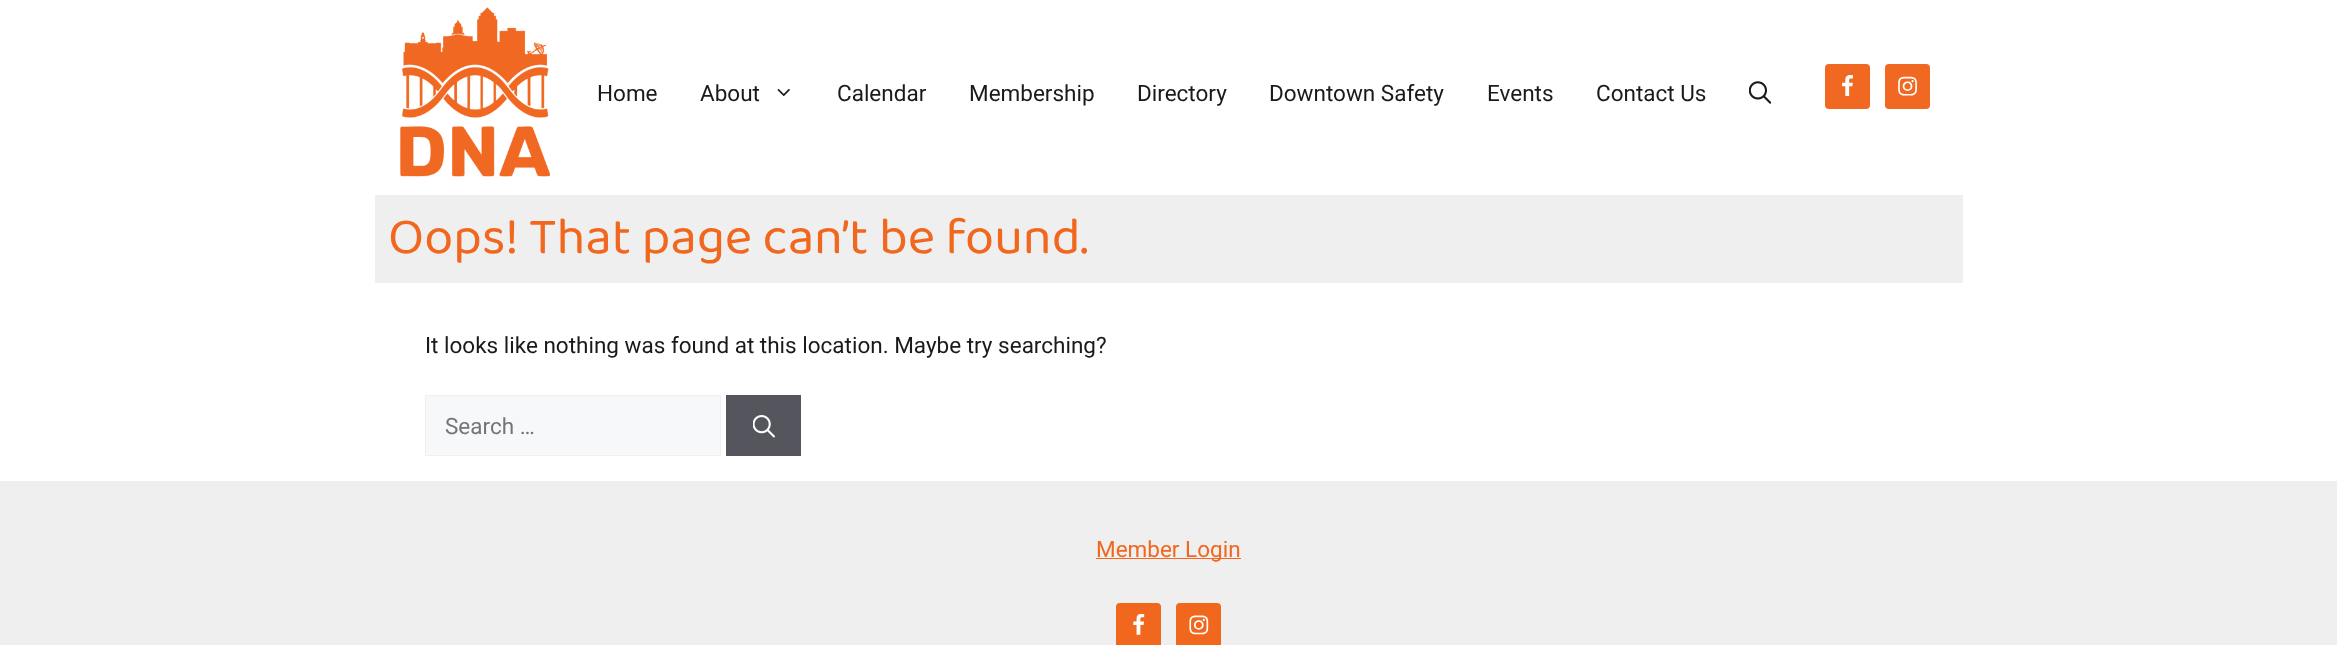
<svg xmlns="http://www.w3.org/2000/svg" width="2337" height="645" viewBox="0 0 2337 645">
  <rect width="100%" height="100%" fill="#fff"/>
  <image x="400" y="7" width="150" height="170" href="img/1.png"/>
  <image x="777" y="88" width="13" height="9" href="img/2.png"/>
  <image x="1749" y="81" width="22" height="23" href="img/3.png"/>
  <rect x="1825" y="64" width="45" height="45" rx="4" fill="#f06822"/>
  <image x="1842" y="75" width="11" height="21" href="img/4.png"/>
  <rect x="1885" y="64" width="45" height="45" rx="4" fill="#f06822"/>
  <image x="1898" y="76" width="19" height="20" href="img/5.png"/>
  <path d="M375 195h1588v88H375z" fill="#efefef"/>
  <path d="M425.5 395.5h295v60H425.5z" fill="#f7f8f9" stroke="#efefef"/>
  <path d="M726 395h75v61H726z" fill="#55555e"/>
  <image x="753" y="415" width="22" height="23" href="img/6.png"/>
  <path d="M0 481h2337v164H0z" fill="#efefef"/>
  <path d="M1096 558h145v1H1096z" fill="#f06822"/>
  <rect x="1116" y="603" width="45" height="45" rx="4" fill="#f1671e"/>
  <image x="1133" y="614" width="12" height="21" href="img/7.png"/>
  <rect x="1176" y="603" width="45" height="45" rx="4" fill="#f1671e"/>
  <image x="1189" y="615" width="20" height="20" href="img/8.png"/>
  <g font-family="Roboto" font-size="22.5" fill="#1a1a1a">
    <text x="597" y="101">Home</text>
    <text x="700" y="101">About</text>
    <text x="837" y="101">Calendar</text>
    <text x="969" y="101">Membership</text>
    <text x="1137" y="101">Directory</text>
    <text x="1269" y="101">Downtown Safety</text>
    <text x="1487" y="101">Events</text>
    <text x="1596" y="101">Contact Us</text>
  </g>
  <text x="388" y="253" font-family="'Baloo 2'" font-size="52.5" fill="#f1671e">Oops! That page can’t be found.</text>
  <text x="425" y="353" font-family="Roboto" font-size="22.5" fill="#1a1a1a">It looks like nothing was found at this location. Maybe try searching?</text>
  <text x="445" y="434" font-family="Roboto" font-size="22.5" fill="#757575">Search …</text>
  <text x="1096" y="557" font-family="Roboto" font-size="22.5" fill="#f1671e">Member Login</text>
</svg>
